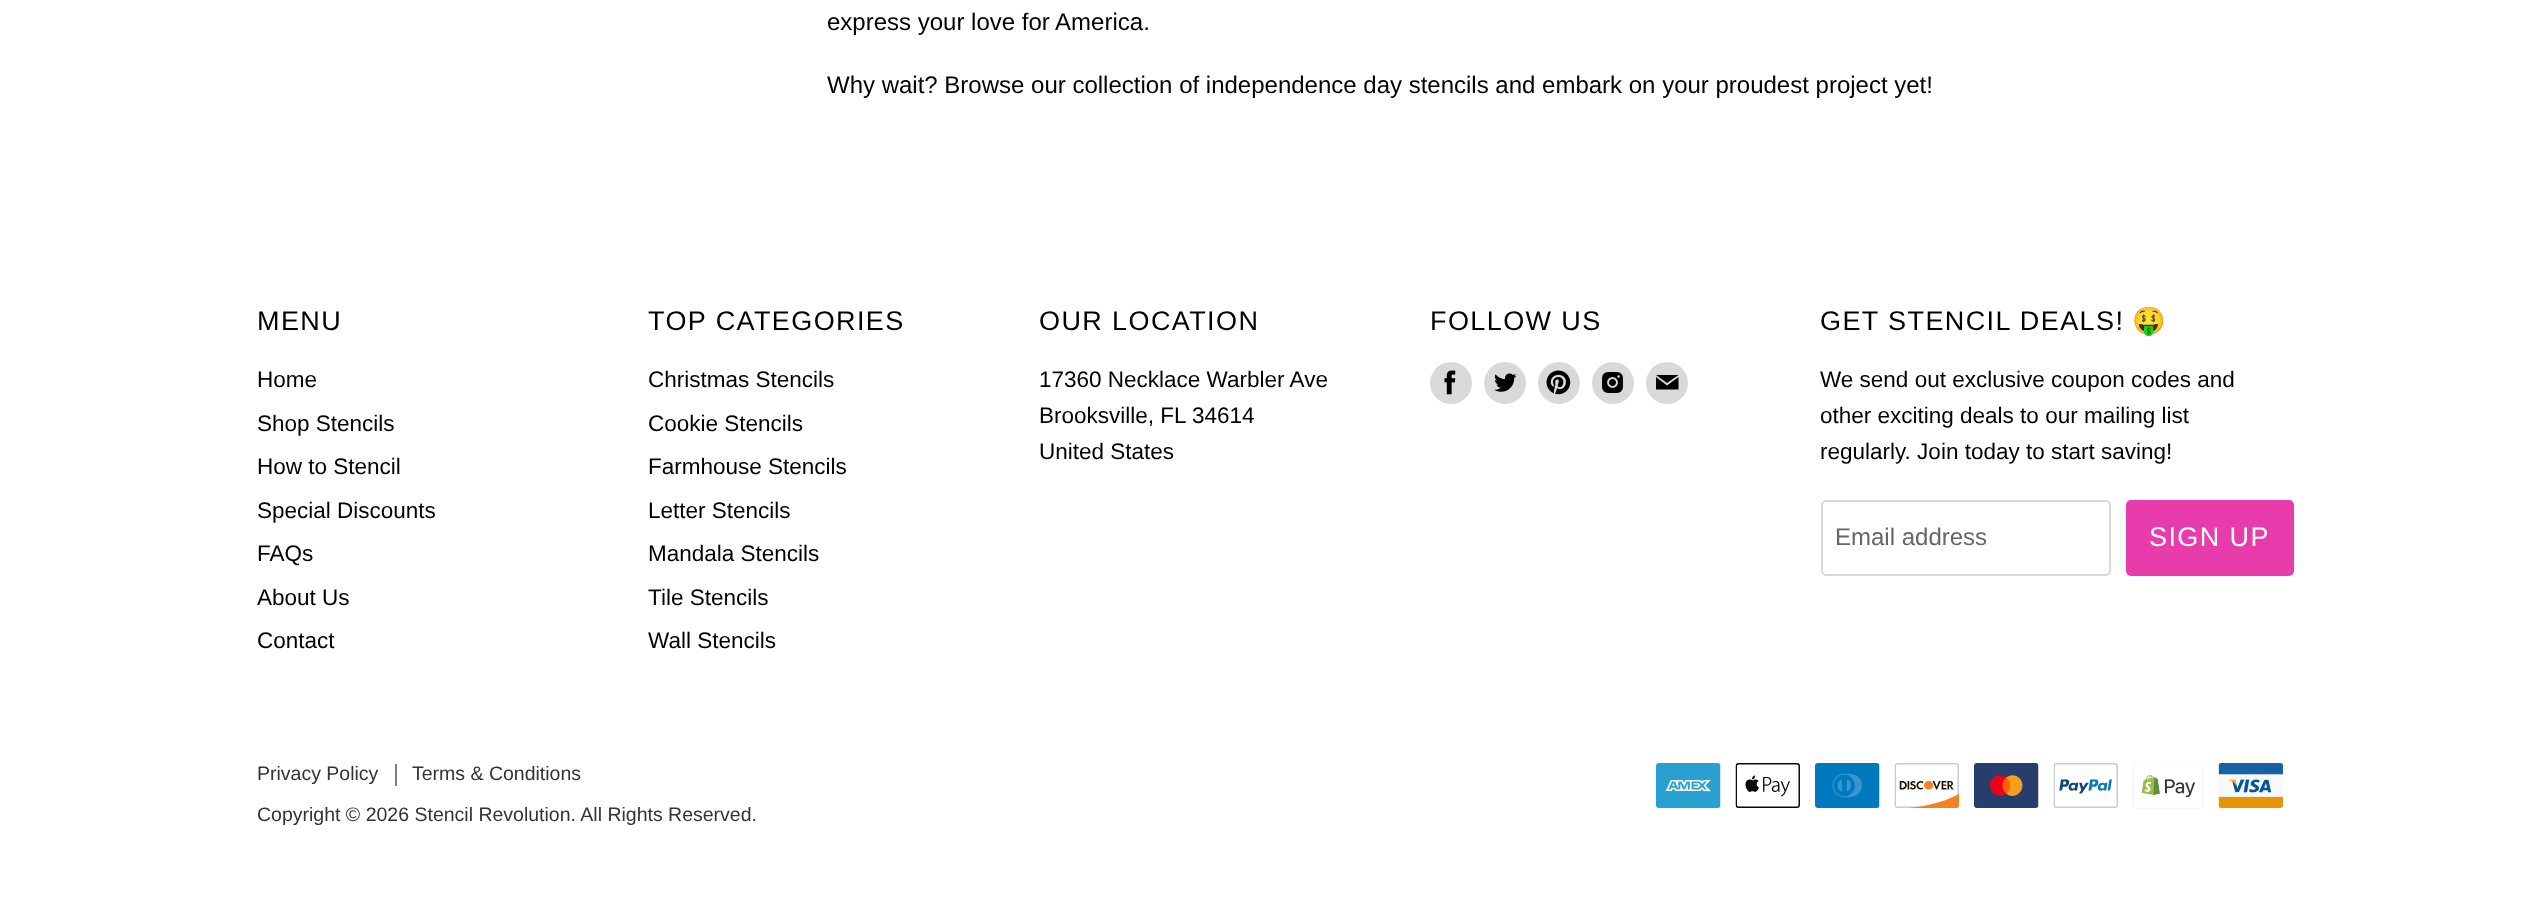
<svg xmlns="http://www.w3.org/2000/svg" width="2539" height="901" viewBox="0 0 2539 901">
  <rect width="100%" height="100%" fill="#fff"/>
  <circle cx="1451" cy="383" r="21" fill="#d9d9d9"/>
  <image x="1444" y="370" width="12" height="25" href="img/1.png"/>
  <circle cx="1505" cy="383" r="21" fill="#d9d9d9"/>
  <image x="1494" y="373" width="23" height="19" href="img/2.png"/>
  <circle cx="1559" cy="383" r="21" fill="#d9d9d9"/>
  <image x="1546" y="370" width="25" height="25" href="img/3.png"/>
  <circle cx="1613" cy="383" r="21" fill="#d9d9d9"/>
  <image x="1602" y="372" width="21" height="21" href="img/4.png"/>
  <circle cx="1667" cy="383" r="21" fill="#d9d9d9"/>
  <path d="M1678.5 375H1656L1667 383ZM1667 385.5L1656 377V389.5H1678.5V377Z" fill="#000" fill-rule="evenodd"/>
  <rect x="1822" y="501" width="288" height="74" rx="4" fill="none" stroke="#d9d9d9" stroke-width="2"/>
  <rect x="2127" y="501" width="166" height="74" rx="4" fill="#e93cac" stroke="#e93cac" stroke-width="2"/>
  <path d="M395 764h2v22H395z" fill="#808080"/>
  <image x="1656" y="763" width="65" height="45" href="img/5.png"/>
  <image x="1735" y="763" width="65" height="45" href="img/6.png"/>
  <image x="1815" y="763" width="65" height="45" href="img/7.png"/>
  <image x="1894" y="763" width="65" height="45" href="img/8.png"/>
  <image x="1974" y="763" width="65" height="45" href="img/9.png"/>
  <image x="2053" y="763" width="65" height="45" href="img/10.png"/>
  <image x="2133" y="764" width="70" height="45" href="img/11.png"/>
  <image x="2218" y="763" width="65" height="45" href="img/12.png"/>
  <g font-family="Liberation Sans" font-size="24" fill="#000">
    <text x="827" y="30">express your love for America.</text>
    <text x="827" y="93">Why wait? Browse our collection of independence day stencils and embark on your proudest project yet!</text>
  </g>
  <text x="257" y="330" font-family="Liberation Sans" font-size="27" letter-spacing="1.4" fill="#000">MENU</text>
  <g font-family="Liberation Sans" font-size="22.5" fill="#000">
    <text x="257" y="387">Home</text>
    <text x="257" y="431">Shop Stencils</text>
    <text x="257" y="474">How to Stencil</text>
    <text x="257" y="518">Special Discounts</text>
    <text x="257" y="561">FAQs</text>
    <text x="257" y="605">About Us</text>
    <text x="257" y="648">Contact</text>
  </g>
  <text x="648" y="330" font-family="Liberation Sans" font-size="27" letter-spacing="1.4" fill="#000">TOP CATEGORIES</text>
  <g font-family="Liberation Sans" font-size="22.5" fill="#000">
    <text x="648" y="387">Christmas Stencils</text>
    <text x="648" y="431">Cookie Stencils</text>
    <text x="648" y="474">Farmhouse Stencils</text>
    <text x="648" y="518">Letter Stencils</text>
    <text x="648" y="561">Mandala Stencils</text>
    <text x="648" y="605">Tile Stencils</text>
    <text x="648" y="648">Wall Stencils</text>
  </g>
  <text x="1039" y="330" font-family="Liberation Sans" font-size="27" letter-spacing="1.4" fill="#000">OUR LOCATION</text>
  <g font-family="Liberation Sans" font-size="22.5" fill="#000">
    <text x="1039" y="387">17360 Necklace Warbler Ave</text>
    <text x="1039" y="423">Brooksville, FL 34614</text>
    <text x="1039" y="459">United States</text>
  </g>
  <g font-family="Liberation Sans" font-size="27" letter-spacing="1.4" fill="#000">
    <text x="1430" y="330">FOLLOW US</text>
    <text x="1820" y="330">GET STENCIL DEALS!</text>
  </g>
  <text x="2132" y="330" font-family="Noto Color Emoji" font-size="27" letter-spacing="1.4" fill="#000">🤑</text>
  <g font-family="Liberation Sans" font-size="22.5" fill="#000">
    <text x="1820" y="387">We send out exclusive coupon codes and</text>
    <text x="1820" y="423">other exciting deals to our mailing list</text>
    <text x="1820" y="459">regularly. Join today to start saving!</text>
  </g>
  <text x="1835" y="545" font-family="Liberation Sans" font-size="24" fill="#666">Email address</text>
  <text x="2149" y="546" font-family="Liberation Sans" font-size="27" letter-spacing="1.4" fill="#fff">SIGN UP</text>
  <g font-family="Liberation Sans" font-size="19.5" fill="#333">
    <text x="257" y="780">Privacy Policy</text>
    <text x="412" y="780">Terms &amp; Conditions</text>
    <text x="257" y="821">Copyright © 2026 Stencil Revolution. All Rights Reserved.</text>
  </g>
</svg>
